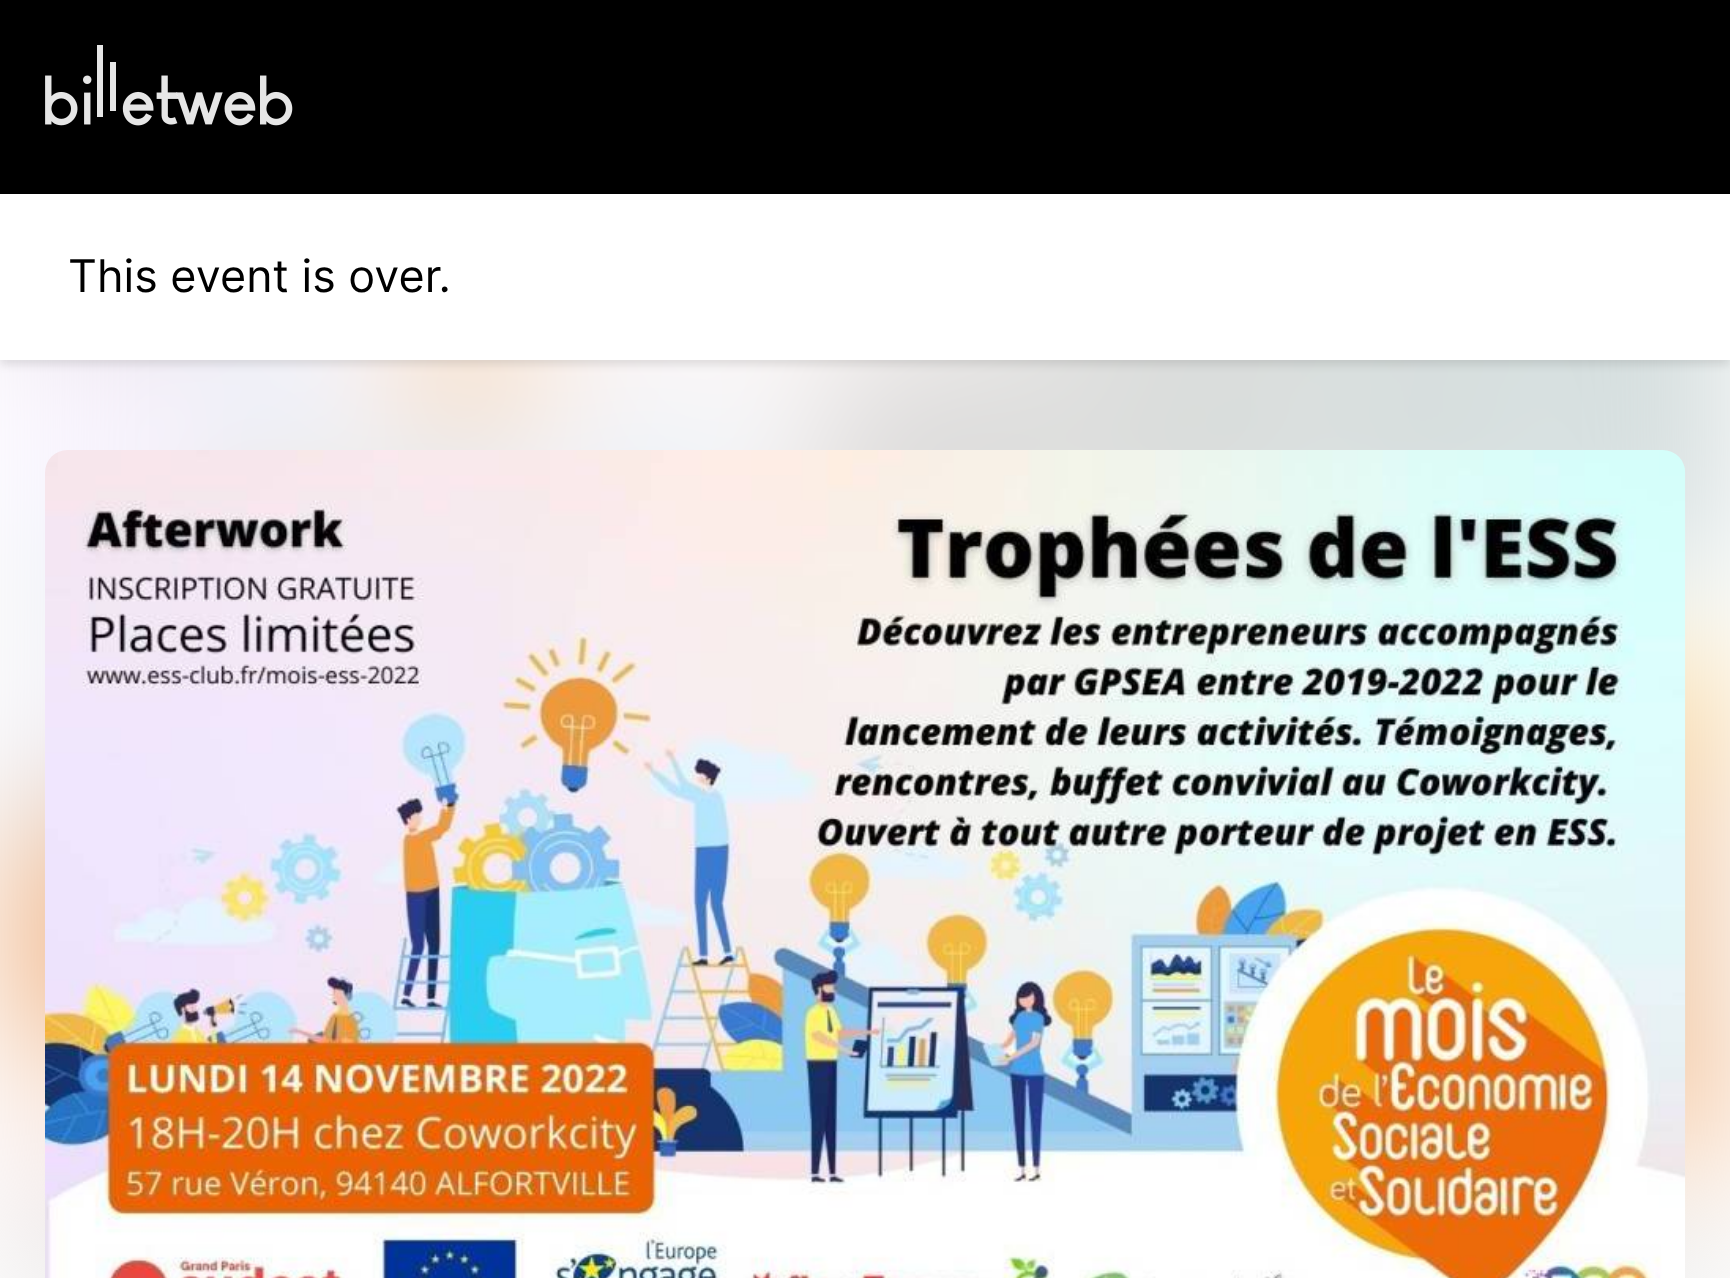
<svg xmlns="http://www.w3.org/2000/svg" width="1730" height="1278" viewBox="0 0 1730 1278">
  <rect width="100%" height="100%" fill="#fff"/>
  <path d="M0 0h1730v194H0z" fill="#000"/>
  <image x="45" y="45" width="248" height="81" href="img/1.png"/>
  <image x="0" y="360" width="1730" height="918" href="img/2.png"/>
  <path d="M0 198h1730v167H0z" fill="#0000001a" filter="blur(4.5px)"/>
  <path d="M0 194h1730v166H0z" fill="#fff"/>
  <image x="45" y="450" width="1641" height="828" href="img/3.png"/>
  <text x="68" y="292" font-family="Inter" font-size="45" fill="#000">This event is over.</text>
</svg>
